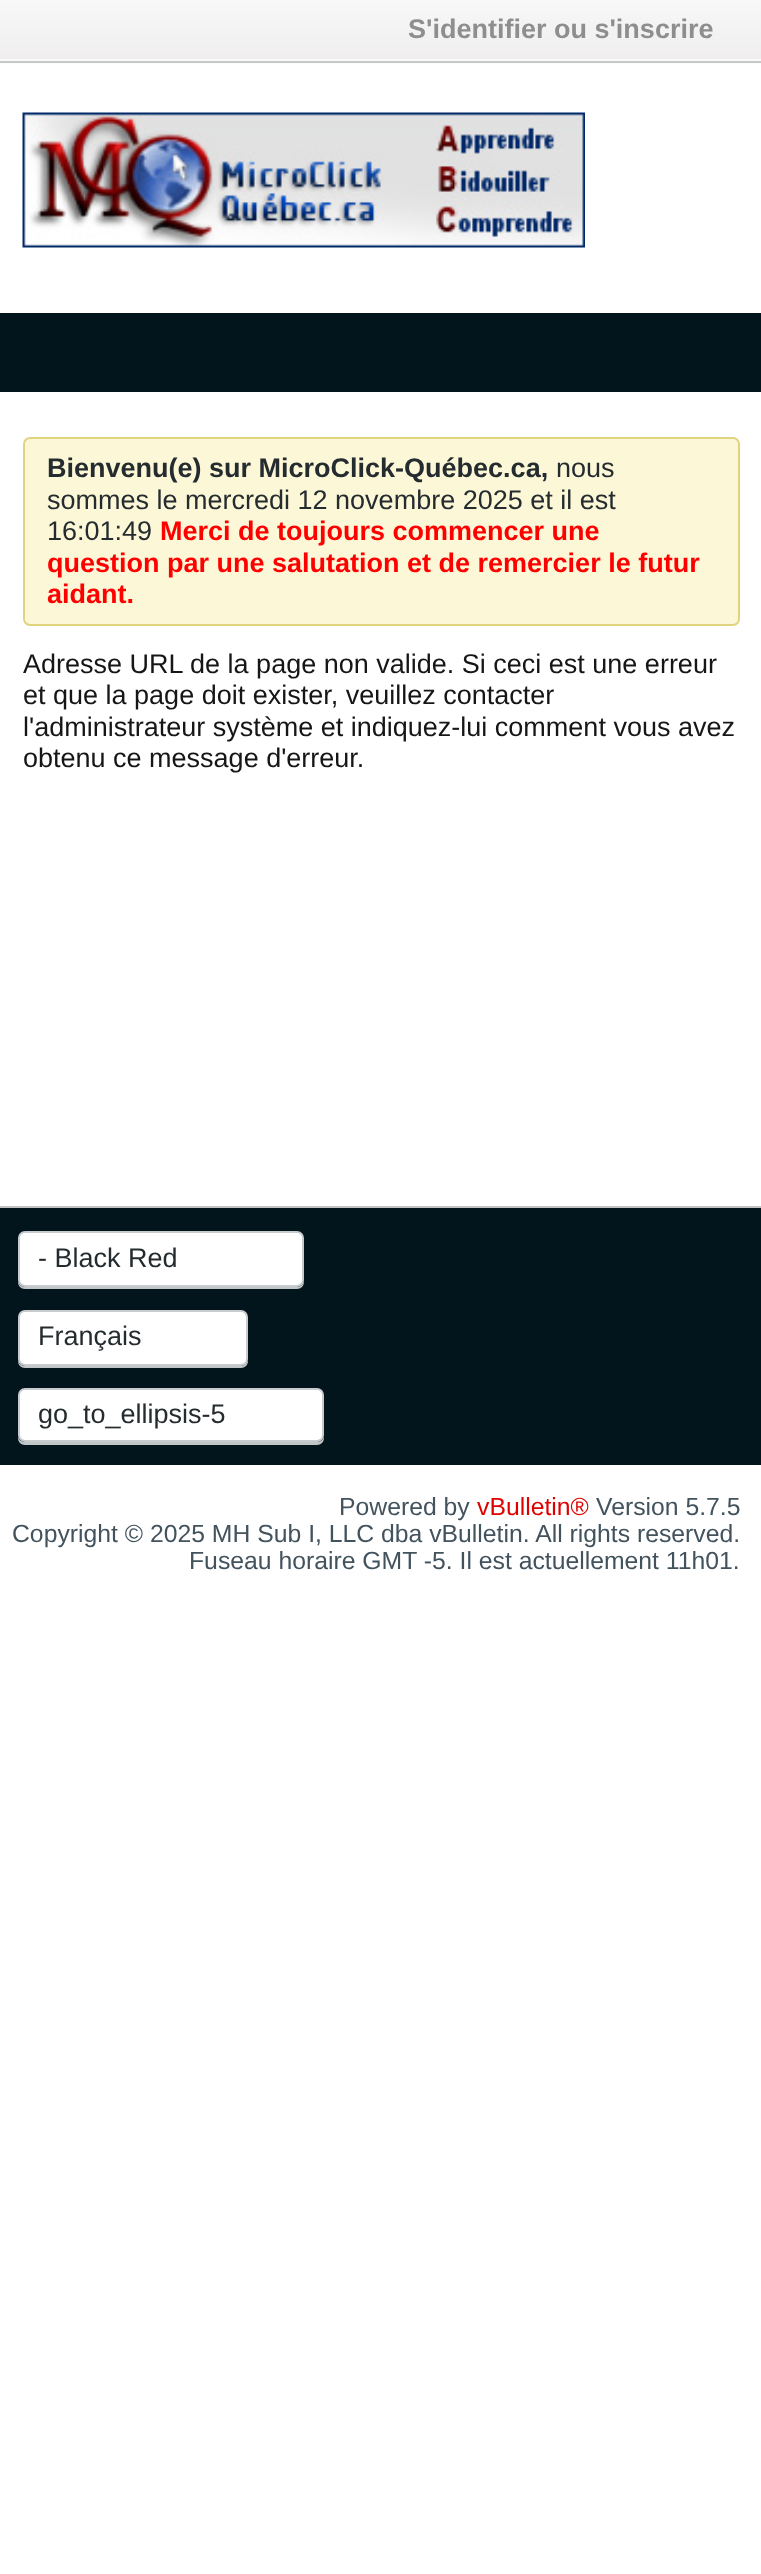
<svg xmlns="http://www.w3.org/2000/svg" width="761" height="2574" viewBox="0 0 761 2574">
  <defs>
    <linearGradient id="g1" gradientUnits="userSpaceOnUse" x1="381" y1="0" x2="381" y2="63"><stop offset="0" stop-color="#f8f8f8"/><stop offset="1" stop-color="#efedee"/></linearGradient>
  </defs>
  <rect width="100%" height="100%" fill="#fff"/>
  <path d="M0 0h761v59H0z" fill="url(#g1)"/>
  <path d="M0 59h761v5H0z" fill="#fafafa"/>
  <path d="M0 61h761v2H0z" fill="#c7c8c9"/>
  <image x="22" y="112" width="563" height="136" href="img/1.png"/>
  <path d="M0 313h761v79H0z" fill="#02151d"/>
  <rect x="24" y="438" width="715" height="187" rx="6" fill="#fcf7d7" stroke="#e1d47e" stroke-width="2"/>
  <path d="M0 1208h761v257H0z" fill="#02151d"/>
  <path d="M0 1206h761v2H0z" fill="#c2c2c2"/>
  <path d="M18 1280V1282C18 1286 21 1289 25 1289H297C301 1289 304 1286 304 1282V1238V1280C304 1284 301 1287 297 1287H25C21 1287 18 1284 18 1280Z" fill="#c0c5c7"/>
  <rect x="19" y="1232" width="284" height="54" rx="6" fill="#fff" stroke="#c8ccce" stroke-width="2"/>
  <path d="M18 1359V1361C18 1365 21 1368 25 1368H241C245 1368 248 1365 248 1361V1319V1316V1359C248 1363 244 1366 241 1366H25C21 1366 18 1363 18 1359Z" fill="#c0c5c7"/>
  <rect x="19" y="1311" width="228" height="54" rx="6" fill="#fff" stroke="#c8ccce" stroke-width="2"/>
  <path d="M18 1436V1438C18 1442 21 1445 25 1445H317C321 1445 324 1442 324 1438V1436C324 1439 321 1442 317 1442H25C21 1442 18 1439 18 1436Z" fill="#c0c5c7"/>
  <rect x="19" y="1389" width="304" height="52" rx="6" fill="#fff" stroke="#c8ccce" stroke-width="2"/>
  <text x="408" y="38" font-family="Liberation Sans" font-size="27" font-weight="bold" fill="#8e8e8e">S'identifier ou s'inscrire</text>
  <text x="47" y="477" font-family="Liberation Sans" font-size="27" font-weight="bold" fill="#252c2f">Bienvenu(e) sur MicroClick-Québec.ca,</text>
  <g font-family="Liberation Sans" font-size="27" fill="#252c2f">
    <text x="556" y="477">nous</text>
    <text x="47" y="509">sommes le mercredi 12 novembre 2025 et il est</text>
    <text x="47" y="540">16:01:49</text>
  </g>
  <g font-family="Liberation Sans" font-size="27" font-weight="bold" fill="#f00">
    <text x="160" y="540">Merci de toujours commencer une</text>
    <text x="47" y="572">question par une salutation et de remercier le futur</text>
    <text x="47" y="603">aidant.</text>
  </g>
  <g font-family="Liberation Sans" font-size="27" fill="#161616">
    <text x="23" y="673">Adresse URL de la page non valide. Si ceci est une erreur</text>
    <text x="23" y="704">et que la page doit exister, veuillez contacter</text>
    <text x="23" y="736">l'administrateur système et indiquez-lui comment vous avez</text>
    <text x="23" y="767">obtenu ce message d'erreur.</text>
  </g>
  <g font-family="Liberation Sans" font-size="27" fill="#252c2f">
    <text x="38" y="1267">- Black Red</text>
    <text x="38" y="1345">Français</text>
    <text x="38" y="1423">go_to_ellipsis-5</text>
  </g>
  <text x="339" y="1515" font-family="Liberation Sans" font-size="24.75" fill="#43535e">Powered by</text>
  <text x="477" y="1515" font-family="Liberation Sans" font-size="24.75" fill="#e00000">vBulletin®</text>
  <g font-family="Liberation Sans" font-size="24.75" fill="#43535e">
    <text x="596" y="1515">Version 5.7.5</text>
    <text x="12" y="1542">Copyright © 2025 MH Sub I, LLC dba vBulletin. All rights reserved.</text>
    <text x="189" y="1569">Fuseau horaire GMT -5. Il est actuellement 11h01.</text>
  </g>
</svg>
